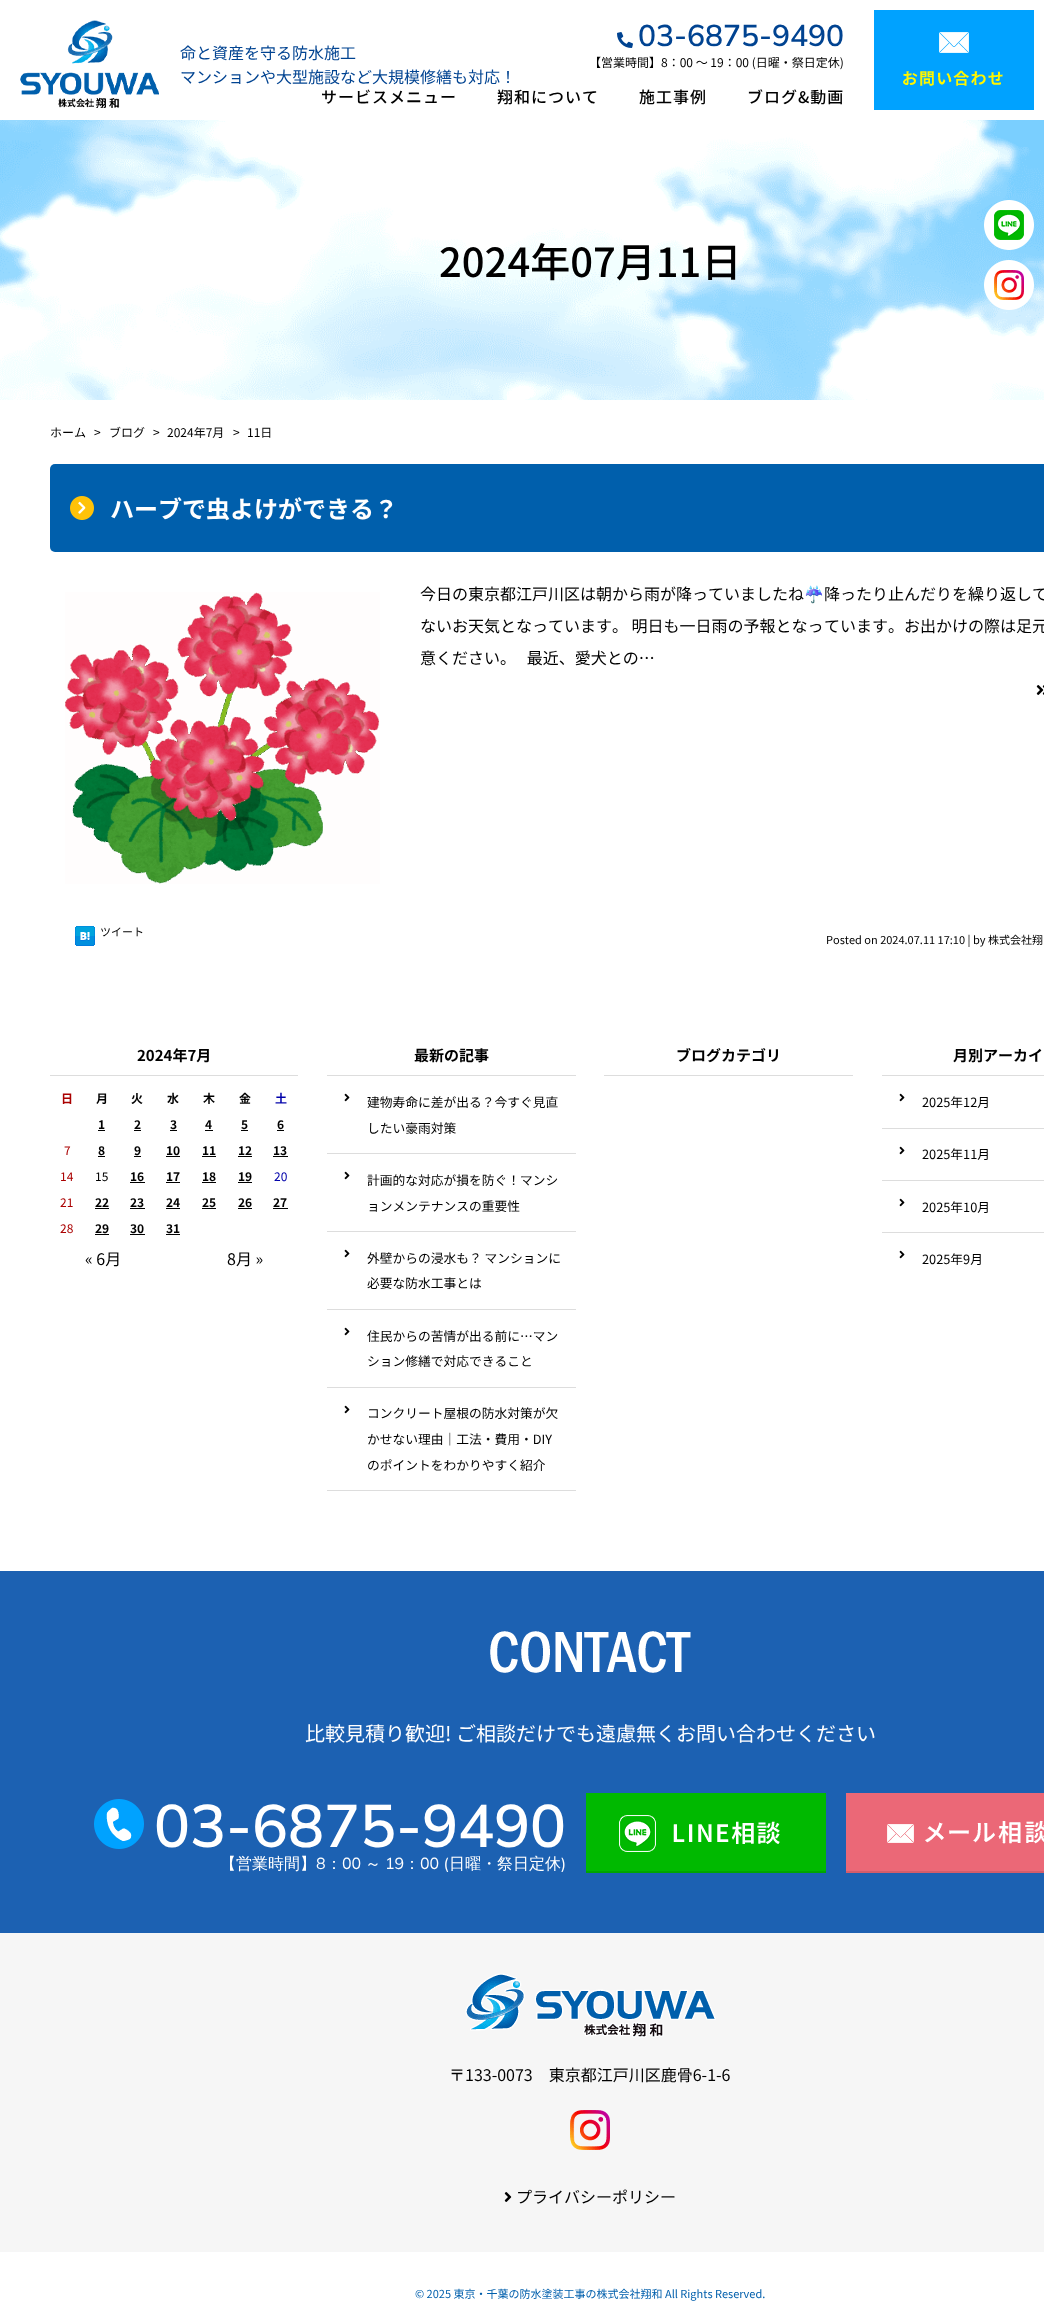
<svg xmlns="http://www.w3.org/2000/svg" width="1044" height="2306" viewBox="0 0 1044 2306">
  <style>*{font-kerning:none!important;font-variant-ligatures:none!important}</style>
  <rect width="100%" height="100%" fill="#fff"/>
  <image x="20" y="20" width="139" height="88" href="img/1.png"/>
  <image x="617" y="32" width="16" height="16" href="img/2.png"/>
  <image x="874" y="10" width="160" height="100" href="img/3.png"/>
  <image x="0" y="120" width="1044" height="280" href="img/4.png"/>
  <image x="984" y="200" width="50" height="50" href="img/5.png"/>
  <image x="984" y="260" width="50" height="50" href="img/6.png"/>
  <rect x="50" y="464" width="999" height="88" rx="5" fill="#005fac"/>
  <image x="70" y="496" width="24" height="24" href="img/7.png"/>
  <image x="65" y="592" width="315" height="292" href="img/8.png"/>
  <image x="1036" y="685" width="8" height="10" href="img/9.png"/>
  <image x="75" y="926" width="20" height="20" href="img/10.png"/>
  <path d="M50 1075h248v1H50z" fill="#ddd"/>
  <path d="M98 1130h7v1H98z" fill="#000"/>
  <path d="M134 1130h7v1H134z" fill="#000"/>
  <path d="M170 1130h7v1H170z" fill="#000"/>
  <path d="M205 1130h8v1H205z" fill="#000"/>
  <path d="M241 1130h7v1H241z" fill="#000"/>
  <path d="M277 1130h7v1H277z" fill="#000"/>
  <path d="M98 1156h7v1H98z" fill="#000"/>
  <path d="M134 1156h7v1H134z" fill="#000"/>
  <path d="M166 1156h14v1H166z" fill="#000"/>
  <path d="M202 1156h14v1H202z" fill="#000"/>
  <path d="M238 1156h14v1H238z" fill="#000"/>
  <path d="M273 1156h15v1H273z" fill="#000"/>
  <path d="M130 1182h15v1H130z" fill="#000"/>
  <path d="M166 1182h14v1H166z" fill="#000"/>
  <path d="M202 1182h14v1H202z" fill="#000"/>
  <path d="M238 1182h14v1H238z" fill="#000"/>
  <path d="M95 1208h14v1H95z" fill="#000"/>
  <path d="M130 1208h15v1H130z" fill="#000"/>
  <path d="M166 1208h14v1H166z" fill="#000"/>
  <path d="M202 1208h14v1H202z" fill="#000"/>
  <path d="M238 1208h14v1H238z" fill="#000"/>
  <path d="M273 1208h15v1H273z" fill="#000"/>
  <path d="M95 1234h14v1H95z" fill="#000"/>
  <path d="M130 1234h15v1H130z" fill="#000"/>
  <path d="M166 1234h14v1H166z" fill="#000"/>
  <path d="M327 1075h249v1H327z" fill="#ddd"/>
  <path d="M327 1153h249v1H327z" fill="#ddd"/>
  <image x="344" y="1093" width="6" height="9" href="img/11.png"/>
  <path d="M327 1231h249v1H327z" fill="#ddd"/>
  <image x="344" y="1171" width="6" height="9" href="img/11.png"/>
  <path d="M327 1309h249v1H327z" fill="#ddd"/>
  <image x="344" y="1249" width="6" height="9" href="img/11.png"/>
  <path d="M327 1387h249v1H327z" fill="#ddd"/>
  <image x="344" y="1327" width="6" height="9" href="img/11.png"/>
  <path d="M327 1490h249v1H327z" fill="#ddd"/>
  <image x="344" y="1405" width="6" height="9" href="img/11.png"/>
  <path d="M604 1075h249v1H604z" fill="#ddd"/>
  <path d="M882 1075h162v1H882z" fill="#ddd"/>
  <path d="M882 1128h162v1H882z" fill="#ddd"/>
  <image x="899" y="1093" width="6" height="9" href="img/11.png"/>
  <path d="M882 1180h162v1H882z" fill="#ddd"/>
  <image x="899" y="1146" width="6" height="9" href="img/11.png"/>
  <path d="M882 1232h162v1H882z" fill="#ddd"/>
  <image x="899" y="1198" width="6" height="9" href="img/11.png"/>
  <image x="899" y="1250" width="6" height="9" href="img/11.png"/>
  <path d="M0 1571h1044v362H0z" fill="#1c61b2"/>
  <image x="490" y="1631" width="201" height="42" href="img/12.png"/>
  <image x="94" y="1799" width="50" height="50" href="img/13.png"/>
  <image x="586" y="1793" width="240" height="80" href="img/14.png"/>
  <image x="846" y="1793" width="198" height="80" href="img/15.png"/>
  <path d="M0 1933h1044v319H0z" fill="#f6f6f6"/>
  <image x="465" y="1973" width="251" height="65" href="img/16.png"/>
  <image x="570" y="2110" width="40" height="40" href="img/17.png"/>
  <image x="504" y="2192" width="8" height="10" href="img/18.png"/>
  <text x="638" y="46" font-family="Mulish" font-size="30" font-weight="600" fill="#004391">03-6875-9490</text>
  <g font-family="Noto Sans JP" font-size="16" fill="#004391">
    <text x="180" y="59">命と資産を守る防水施工</text>
    <text x="180" y="83">マンションや大型施設など大規模修繕も対応！</text>
  </g>
  <text x="589" y="67" font-family="Noto Sans JP" font-size="12" fill="#000">【営業時間】8：00 ～ 19：00 (日曜・祭日定休)</text>
  <g font-family="Noto Sans JP" font-size="16" font-weight="500" letter-spacing="1" fill="#000">
    <text x="321" y="103">サービスメニュー</text>
    <text x="497" y="103">翔和について</text>
    <text x="639" y="103">施工事例</text>
    <text x="747" y="103">ブログ&amp;動画</text>
  </g>
  <text x="439" y="277" font-family="Noto Sans JP" font-size="40" font-weight="500" fill="#000">2024年07月11日</text>
  <g font-family="Noto Sans JP" font-size="12" fill="#000">
    <text x="50" y="437">ホーム</text>
    <text x="94" y="437">&gt;</text>
    <text x="109" y="437">ブログ</text>
    <text x="153" y="437">&gt;</text>
    <text x="167" y="437">2024年7月</text>
    <text x="233" y="437">&gt;</text>
    <text x="247" y="437">11日</text>
  </g>
  <text x="110" y="518" font-family="Noto Sans JP" font-size="24" font-weight="bold" fill="#fff">ハーブで虫よけができる？</text>
  <text x="420" y="600" font-family="Noto Sans JP" font-size="16" fill="#000">今日の東京都江戸川区は朝から雨が降っていましたね</text>
  <text x="804" y="600" font-family="Noto Color Emoji" font-size="16" fill="#000">☔</text>
  <g font-family="Noto Sans JP" font-size="16" fill="#000">
    <text x="824" y="600">降ったり止んだりを繰り返して</text>
    <text x="420" y="632">ないお天気となっています。 明日も一日雨の予報となっ</text>
    <text x="824" y="632">ています。お出かけの際は足元</text>
    <text x="420" y="664" xml:space="preserve">意ください。   最近、愛犬との…</text>
  </g>
  <g font-family="Noto Sans JP" font-size="11" fill="#000">
    <text x="100" y="936">ツイート</text>
    <text x="826" y="944">Posted on 2024.07.11 17:10 | by 株式会社翔</text>
  </g>
  <text x="137" y="1061" font-family="Noto Sans JP" font-size="15" font-weight="bold" fill="#000">2024年7月</text>
  <text x="61" y="1103" font-family="Noto Sans JP" font-size="12" font-weight="bold" fill="#a00">日</text>
  <g font-family="Noto Sans JP" font-size="12" font-weight="bold" fill="#000">
    <text x="96" y="1103">月</text>
    <text x="131" y="1103">火</text>
    <text x="167" y="1103">水</text>
    <text x="203" y="1103">木</text>
    <text x="239" y="1103">金</text>
  </g>
  <text x="275" y="1103" font-family="Noto Sans JP" font-size="12" font-weight="bold" fill="#00a">土</text>
  <g font-family="Noto Sans JP" font-size="12" font-weight="bold" fill="#000">
    <text x="98" y="1129">1</text>
    <text x="134" y="1129">2</text>
    <text x="170" y="1129">3</text>
    <text x="205" y="1129">4</text>
    <text x="241" y="1129">5</text>
    <text x="277" y="1129">6</text>
  </g>
  <text x="64" y="1155" font-family="Noto Sans JP" font-size="12" fill="#a00">7</text>
  <g font-family="Noto Sans JP" font-size="12" font-weight="bold" fill="#000">
    <text x="98" y="1155">8</text>
    <text x="134" y="1155">9</text>
    <text x="166" y="1155">10</text>
    <text x="202" y="1155">11</text>
    <text x="238" y="1155">12</text>
    <text x="273" y="1155">13</text>
  </g>
  <text x="60" y="1181" font-family="Noto Sans JP" font-size="12" fill="#a00">14</text>
  <text x="95" y="1181" font-family="Noto Sans JP" font-size="12" fill="#000">15</text>
  <g font-family="Noto Sans JP" font-size="12" font-weight="bold" fill="#000">
    <text x="130" y="1181">16</text>
    <text x="166" y="1181">17</text>
    <text x="202" y="1181">18</text>
    <text x="238" y="1181">19</text>
  </g>
  <text x="274" y="1181" font-family="Noto Sans JP" font-size="12" fill="#00a">20</text>
  <text x="60" y="1207" font-family="Noto Sans JP" font-size="12" fill="#a00">21</text>
  <g font-family="Noto Sans JP" font-size="12" font-weight="bold" fill="#000">
    <text x="95" y="1207">22</text>
    <text x="130" y="1207">23</text>
    <text x="166" y="1207">24</text>
    <text x="202" y="1207">25</text>
    <text x="238" y="1207">26</text>
    <text x="273" y="1207">27</text>
  </g>
  <text x="60" y="1233" font-family="Noto Sans JP" font-size="12" fill="#a00">28</text>
  <g font-family="Noto Sans JP" font-size="12" font-weight="bold" fill="#000">
    <text x="95" y="1233">29</text>
    <text x="130" y="1233">30</text>
    <text x="166" y="1233">31</text>
  </g>
  <g font-family="Noto Sans JP" font-size="16" fill="#000">
    <text x="85" y="1265">« 6月</text>
    <text x="227" y="1265">8月 »</text>
  </g>
  <text x="414" y="1061" font-family="Noto Sans JP" font-size="15" font-weight="bold" fill="#000">最新の記事</text>
  <g font-family="Noto Sans JP" font-size="12.75" fill="#000">
    <text x="367" y="1107">建物寿命に差が出る？今すぐ見直</text>
    <text x="367" y="1133">したい豪雨対策</text>
    <text x="367" y="1185">計画的な対応が損を防ぐ！マンシ</text>
    <text x="367" y="1211">ョンメンテナンスの重要性</text>
    <text x="367" y="1263">外壁からの浸水も？ マンションに</text>
    <text x="367" y="1288">必要な防水工事とは</text>
    <text x="367" y="1341">住民からの苦情が出る前に…マン</text>
    <text x="367" y="1366">ション修繕で対応できること</text>
    <text x="367" y="1418">コンクリート屋根の防水対策が欠</text>
    <text x="367" y="1444">かせない理由｜工法・費用・DIY</text>
    <text x="367" y="1470">のポイントをわかりやすく紹介</text>
  </g>
  <g font-family="Noto Sans JP" font-size="15" font-weight="bold" fill="#000">
    <text x="676" y="1061">ブログカテゴリ</text>
    <text x="953" y="1061">月別アーカイ</text>
  </g>
  <g font-family="Noto Sans JP" font-size="12.75" fill="#000">
    <text x="922" y="1107">2025年12月</text>
    <text x="922" y="1159">2025年11月</text>
    <text x="922" y="1212">2025年10月</text>
    <text x="922" y="1264">2025年9月</text>
  </g>
  <text x="305" y="1741" font-family="Noto Sans JP" font-size="20" fill="#fff">比較見積り歓迎! ご相談だけでも遠慮無くお問い合わせください</text>
  <text x="154" y="1847" font-family="Mulish" font-size="60" font-weight="600" fill="#fff">03-6875-9490</text>
  <text x="220" y="1869" font-family="WenQuanYi Zen Hei" font-size="16" font-weight="500" fill="#fff">【営業時間】</text>
  <text x="316" y="1869" font-family="Mulish" font-size="16" fill="#fff">8</text>
  <text x="326" y="1869" font-family="WenQuanYi Zen Hei" font-size="16" font-weight="500" fill="#fff">：</text>
  <text x="342" y="1869" font-family="Mulish" font-size="16" fill="#fff">00</text>
  <text x="365" y="1869" font-family="WenQuanYi Zen Hei" font-size="16" font-weight="500" fill="#fff">～</text>
  <text x="385" y="1869" font-family="Mulish" font-size="16" fill="#fff">19</text>
  <text x="404" y="1869" font-family="WenQuanYi Zen Hei" font-size="16" font-weight="500" fill="#fff">：</text>
  <text x="420" y="1869" font-family="Mulish" font-size="16" fill="#fff">00 (</text>
  <text x="449" y="1869" font-family="WenQuanYi Zen Hei" font-size="16" font-weight="500" fill="#fff">日曜・祭日定休</text>
  <text x="561" y="1869" font-family="Mulish" font-size="16" fill="#fff">)</text>
  <g font-family="Noto Sans JP" font-size="16" fill="#000">
    <text x="449" y="2081">〒133-0073　東京都江戸川区鹿骨6-1-6</text>
    <text x="516" y="2203">プライバシーポリシー</text>
  </g>
  <text x="415" y="2298" font-family="Noto Sans JP" font-size="11" fill="#005fac">© 2025 東京・千葉の防水塗装工事の株式会社翔和 All Rights Reserved.</text>
</svg>
